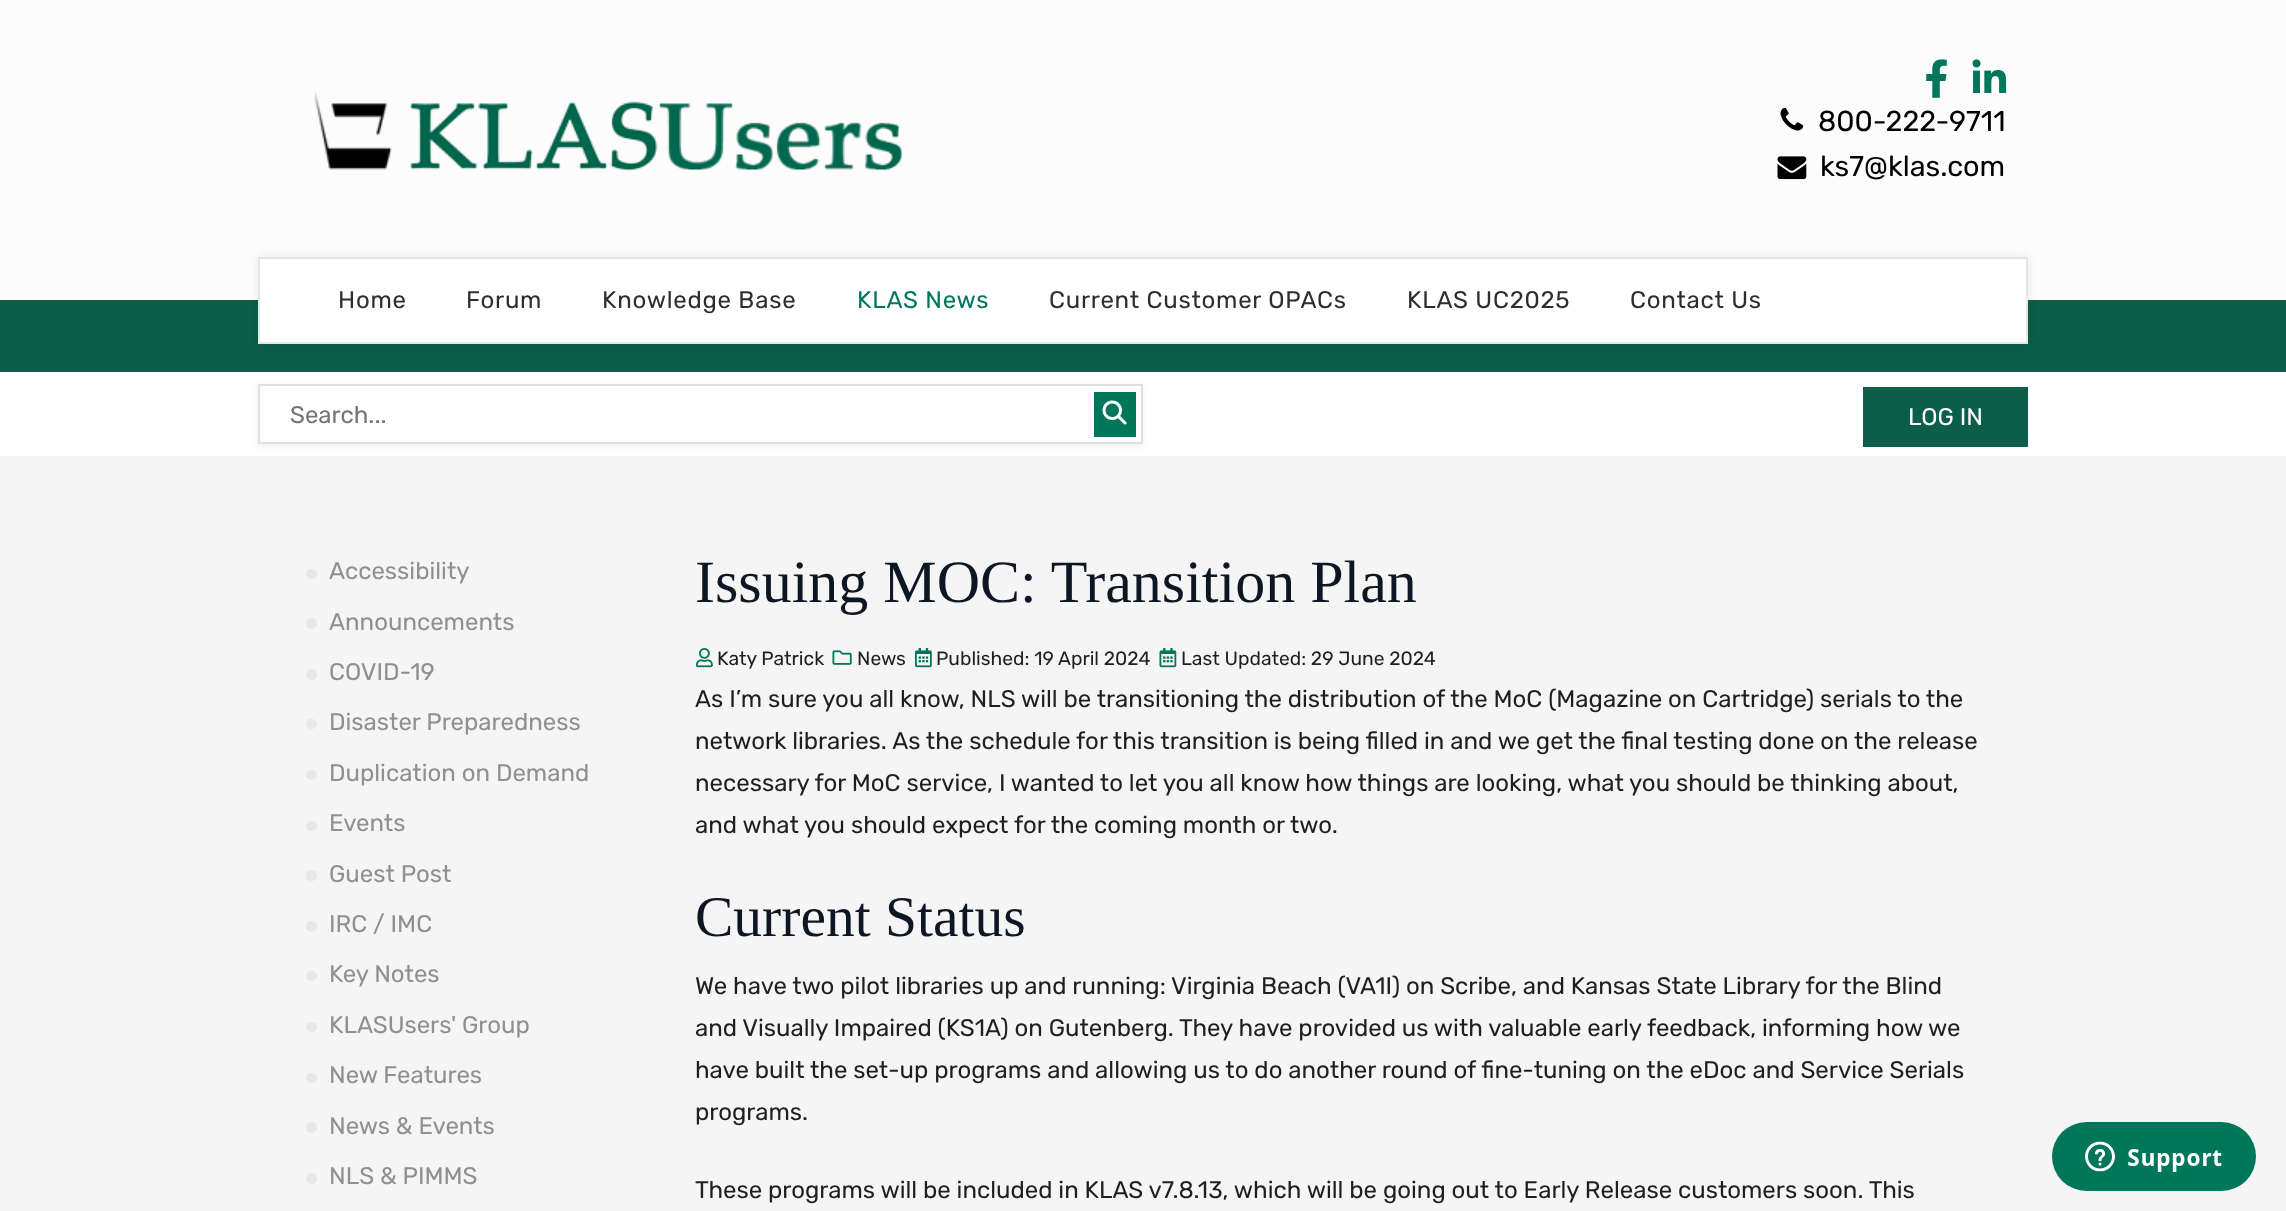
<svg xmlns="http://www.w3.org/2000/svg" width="2286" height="1211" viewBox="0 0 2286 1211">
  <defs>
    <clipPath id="clip1"><path d="M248 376H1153V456H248ZM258 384H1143V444H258Z" clip-rule="evenodd"/></clipPath>
  </defs>
  <rect width="100%" height="100%" fill="#fff"/>
  <path d="M0 0h2286v300H0z" fill="#fcfcfc"/>
  <image x="314" y="91" width="589" height="80" href="img/1.png"/>
  <image x="1926" y="59" width="21" height="39" href="img/2.png"/>
  <image x="1972" y="59" width="35" height="34" href="img/3.png"/>
  <image x="1780" y="107" width="24" height="24" href="img/4.png"/>
  <image x="1777" y="156" width="30" height="24" href="img/5.png"/>
  <path d="M0 300h2286v72H0z" fill="#0b5e4a"/>
  <path d="M258 257h1770v87H258z" fill="#00000014" filter="blur(4.5px)"/>
  <path d="M259 258h1768v85H259z" fill="#fff" stroke="#e6e6e6" stroke-width="2"/>
  <g clip-path="url(#clip1)">
    <path d="M258 386h885v60H258z" fill="#0000000f" filter="blur(3px)"/>
  </g>
  <path d="M259 385h883v58H259z" fill="none" stroke="#e0e0e0" stroke-width="2"/>
  <path d="M1094 392h42v45H1094z" fill="#00765a"/>
  <image x="1102" y="400" width="25" height="25" href="img/6.png"/>
  <path d="M1863 387h165v60H1863z" fill="#0b5e4a"/>
  <path d="M0 456h2286v755H0z" fill="#f5f5f5"/>
  <rect x="306" y="569" width="11" height="10" rx="5" fill="#e8e8e8"/>
  <rect x="306" y="618" width="11" height="11" rx="5" fill="#e8e8e8"/>
  <rect x="306" y="669" width="11" height="11" rx="5" fill="#e8e8e8"/>
  <rect x="306" y="719" width="11" height="10" rx="5" fill="#e8e8e8"/>
  <rect x="306" y="770" width="11" height="10" rx="5" fill="#e8e8e8"/>
  <rect x="306" y="821" width="11" height="10" rx="5" fill="#e8e8e8"/>
  <rect x="306" y="870" width="11" height="11" rx="5" fill="#e8e8e8"/>
  <rect x="306" y="921" width="11" height="11" rx="5" fill="#e8e8e8"/>
  <rect x="306" y="971" width="11" height="10" rx="5" fill="#e8e8e8"/>
  <rect x="306" y="1022" width="11" height="10" rx="5" fill="#e8e8e8"/>
  <rect x="306" y="1073" width="11" height="10" rx="5" fill="#e8e8e8"/>
  <rect x="306" y="1122" width="11" height="11" rx="5" fill="#e8e8e8"/>
  <rect x="306" y="1173" width="11" height="11" rx="5" fill="#e8e8e8"/>
  <image x="696" y="648" width="17" height="20" href="img/7.png"/>
  <image x="832" y="650" width="20" height="15" href="img/8.png"/>
  <image x="915" y="648" width="17" height="20" href="img/9.png"/>
  <image x="1159" y="648" width="18" height="20" href="img/10.png"/>
  <image x="2052" y="1122" width="204" height="69" href="img/11.png"/>
  <g font-family="Rubik" font-size="28.75" fill="#000">
    <text x="1818" y="131">800-222-9711</text>
    <text x="1820" y="176">ks7@klas.com</text>
  </g>
  <g font-family="Rubik" font-size="24" letter-spacing="0.75" fill="#2e2e2e">
    <text x="338" y="308">Home</text>
    <text x="466" y="308">Forum</text>
    <text x="602" y="308">Knowledge Base</text>
  </g>
  <text x="857" y="308" font-family="Rubik" font-size="24" letter-spacing="0.75" fill="#00765a">KLAS News</text>
  <g font-family="Rubik" font-size="24" letter-spacing="0.75" fill="#2e2e2e">
    <text x="1049" y="308">Current Customer OPACs</text>
    <text x="1407" y="308">KLAS UC2025</text>
    <text x="1630" y="308">Contact Us</text>
  </g>
  <text x="290" y="423" font-family="Rubik" font-size="24" fill="#757575">Search...</text>
  <text x="1908" y="425" font-family="Rubik" font-size="24" fill="#fff">LOG IN</text>
  <g font-family="Rubik" font-size="24" fill="#909090">
    <text x="329" y="579">Accessibility</text>
    <text x="329" y="630">Announcements</text>
    <text x="329" y="680">COVID-19</text>
    <text x="329" y="730">Disaster Preparedness</text>
    <text x="329" y="781">Duplication on Demand</text>
    <text x="329" y="831">Events</text>
    <text x="329" y="882">Guest Post</text>
    <text x="329" y="932">IRC / IMC</text>
    <text x="329" y="982">Key Notes</text>
    <text x="329" y="1033">KLASUsers' Group</text>
    <text x="329" y="1083">New Features</text>
    <text x="329" y="1134">News &amp; Events</text>
    <text x="329" y="1184">NLS &amp; PIMMS</text>
  </g>
  <text x="695" y="602" font-family="Liberation Serif" font-size="60" fill="#0d1724">Issuing MOC: Transition Plan</text>
  <g font-family="Rubik" font-size="19.25" fill="#1f1f1f">
    <text x="717" y="665">Katy Patrick</text>
    <text x="857" y="665">News</text>
    <text x="936" y="665">Published: 19 April 2024</text>
    <text x="1181" y="665">Last Updated: 29 June 2024</text>
  </g>
  <g font-family="Rubik" font-size="24" fill="#1f1f1f">
    <text x="695" y="707">As I’m sure you all know, NLS will be transitioning the distribution of the MoC (Magazine on Cartridge) serials to the</text>
    <text x="695" y="749">network libraries. As the schedule for this transition is being filled in and we get the final testing done on the release</text>
    <text x="695" y="791">necessary for MoC service, I wanted to let you all know how things are looking, what you should be thinking about,</text>
    <text x="695" y="833">and what you should expect for the coming month or two.</text>
  </g>
  <text x="695" y="936" font-family="Liberation Serif" font-size="57.5" fill="#0d1724">Current Status</text>
  <g font-family="Rubik" font-size="24" fill="#1f1f1f">
    <text x="695" y="994">We have two pilot libraries up and running: Virginia Beach (VA1I) on Scribe, and Kansas State Library for the Blind</text>
    <text x="695" y="1036">and Visually Impaired (KS1A) on Gutenberg. They have provided us with valuable early feedback, informing how we</text>
    <text x="695" y="1078">have built the set-up programs and allowing us to do another round of fine-tuning on the eDoc and Service Serials</text>
    <text x="695" y="1120">programs.</text>
    <text x="695" y="1198">These programs will be included in KLAS v7.8.13, which will be going out to Early Release customers soon. This</text>
  </g>
</svg>
